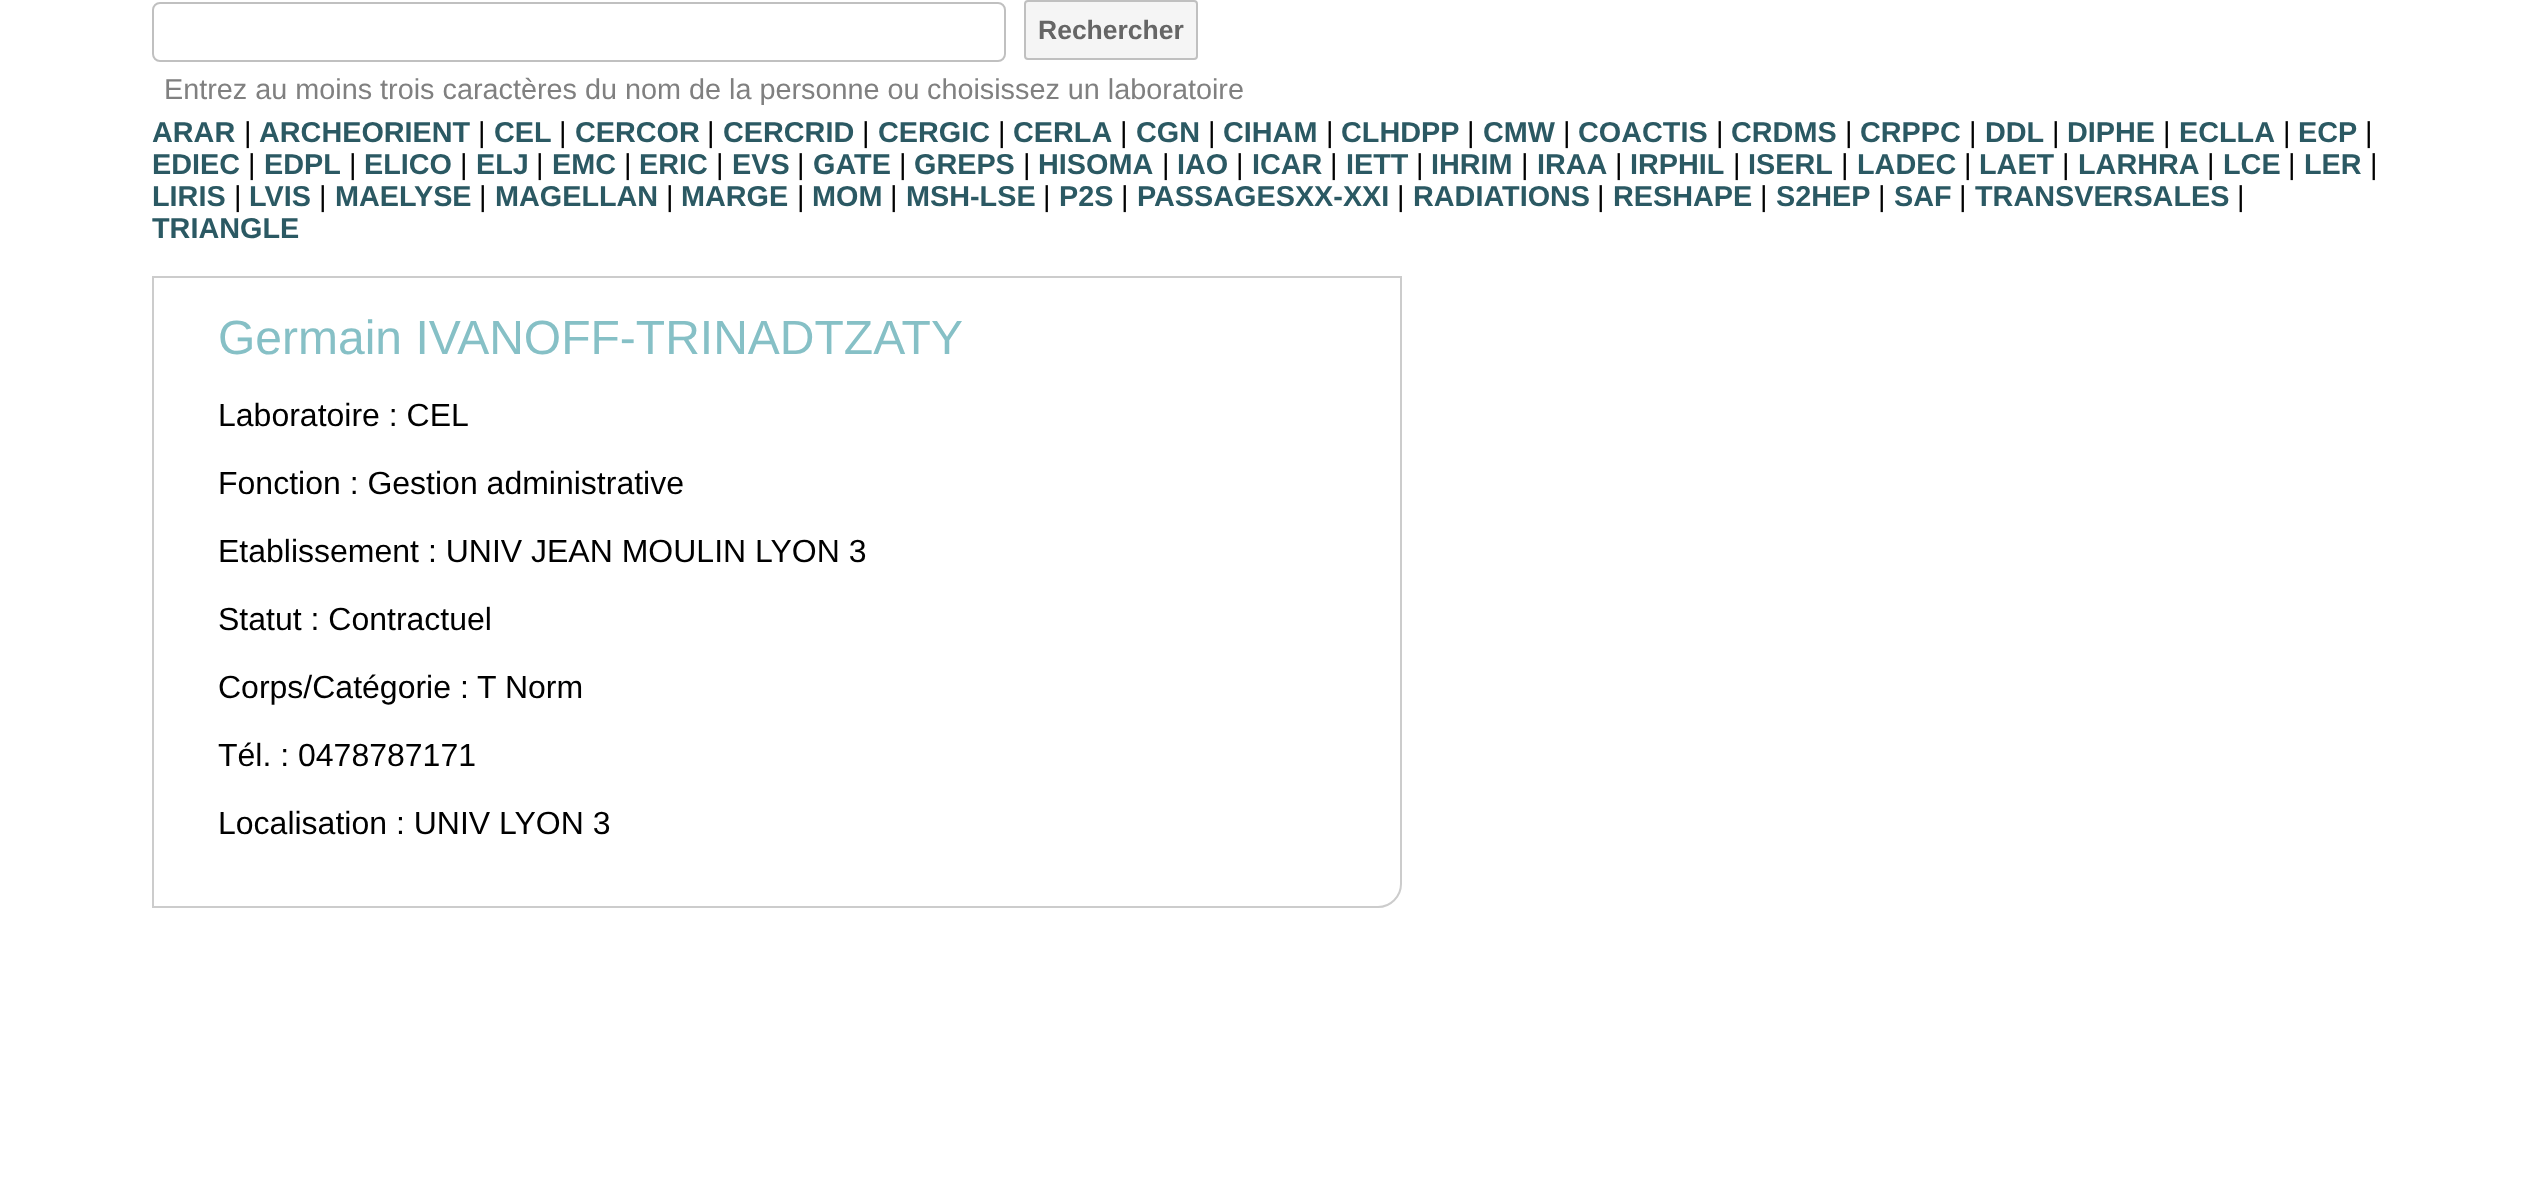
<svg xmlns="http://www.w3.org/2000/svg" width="2540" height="1186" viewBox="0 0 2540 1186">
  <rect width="100%" height="100%" fill="#fff"/>
  <rect x="153" y="3" width="852" height="58" rx="7" fill="none" stroke="#c0c0c0" stroke-width="2"/>
  <rect x="1025" y="1" width="172" height="58" rx="3" fill="#f5f5f5" stroke="#c0c0c0" stroke-width="2"/>
  <path d="M153 277H1401V884C1401 896.5 1390.5 907 1378 907H153Z" fill="none" stroke="#ccc" stroke-width="2"/>
  <text x="1038" y="39" font-family="Liberation Sans" font-size="26.5" font-weight="bold" fill="#666">Rechercher</text>
  <g font-family="Liberation Sans" font-size="28.8" fill="#808080">
    <text x="164" y="99">Entrez au moins trois caractères du nom de la personne ou</text>
    <text x="927" y="99">choisissez un laboratoire</text>
  </g>
  <text x="152" y="142" font-family="Liberation Sans" font-size="28.8" font-weight="bold" fill="#2b5963">ARAR</text>
  <text x="244" y="142" font-family="Liberation Sans" font-size="28.8" fill="#000">|</text>
  <text x="259" y="142" font-family="Liberation Sans" font-size="28.8" font-weight="bold" fill="#2b5963">ARCHEORIENT</text>
  <text x="478" y="142" font-family="Liberation Sans" font-size="28.8" fill="#000">|</text>
  <text x="494" y="142" font-family="Liberation Sans" font-size="28.8" font-weight="bold" fill="#2b5963">CEL</text>
  <text x="559" y="142" font-family="Liberation Sans" font-size="28.8" fill="#000">|</text>
  <text x="575" y="142" font-family="Liberation Sans" font-size="28.8" font-weight="bold" fill="#2b5963">CERCOR</text>
  <text x="707" y="142" font-family="Liberation Sans" font-size="28.8" fill="#000">|</text>
  <text x="723" y="142" font-family="Liberation Sans" font-size="28.8" font-weight="bold" fill="#2b5963">CERCRID</text>
  <text x="862" y="142" font-family="Liberation Sans" font-size="28.8" fill="#000">|</text>
  <text x="878" y="142" font-family="Liberation Sans" font-size="28.8" font-weight="bold" fill="#2b5963">CERGIC</text>
  <text x="998" y="142" font-family="Liberation Sans" font-size="28.8" fill="#000">|</text>
  <text x="1013" y="142" font-family="Liberation Sans" font-size="28.8" font-weight="bold" fill="#2b5963">CERLA</text>
  <text x="1120" y="142" font-family="Liberation Sans" font-size="28.8" fill="#000">|</text>
  <text x="1136" y="142" font-family="Liberation Sans" font-size="28.8" font-weight="bold" fill="#2b5963">CGN</text>
  <text x="1208" y="142" font-family="Liberation Sans" font-size="28.8" fill="#000">|</text>
  <text x="1223" y="142" font-family="Liberation Sans" font-size="28.8" font-weight="bold" fill="#2b5963">CIHAM</text>
  <text x="1326" y="142" font-family="Liberation Sans" font-size="28.8" fill="#000">|</text>
  <text x="1341" y="142" font-family="Liberation Sans" font-size="28.8" font-weight="bold" fill="#2b5963">CLHDPP</text>
  <text x="1467" y="142" font-family="Liberation Sans" font-size="28.8" fill="#000">|</text>
  <text x="1483" y="142" font-family="Liberation Sans" font-size="28.8" font-weight="bold" fill="#2b5963">CMW</text>
  <text x="1563" y="142" font-family="Liberation Sans" font-size="28.8" fill="#000">|</text>
  <text x="1578" y="142" font-family="Liberation Sans" font-size="28.8" font-weight="bold" fill="#2b5963">COACTIS</text>
  <text x="1716" y="142" font-family="Liberation Sans" font-size="28.8" fill="#000">|</text>
  <text x="1731" y="142" font-family="Liberation Sans" font-size="28.8" font-weight="bold" fill="#2b5963">CRDMS</text>
  <text x="1845" y="142" font-family="Liberation Sans" font-size="28.8" fill="#000">|</text>
  <text x="1860" y="142" font-family="Liberation Sans" font-size="28.8" font-weight="bold" fill="#2b5963">CRPPC</text>
  <text x="1969" y="142" font-family="Liberation Sans" font-size="28.8" fill="#000">|</text>
  <text x="1985" y="142" font-family="Liberation Sans" font-size="28.8" font-weight="bold" fill="#2b5963">DDL</text>
  <text x="2052" y="142" font-family="Liberation Sans" font-size="28.8" fill="#000">|</text>
  <text x="2067" y="142" font-family="Liberation Sans" font-size="28.8" font-weight="bold" fill="#2b5963">DIPHE</text>
  <text x="2163" y="142" font-family="Liberation Sans" font-size="28.8" fill="#000">|</text>
  <text x="2179" y="142" font-family="Liberation Sans" font-size="28.8" font-weight="bold" fill="#2b5963">ECLLA</text>
  <text x="2283" y="142" font-family="Liberation Sans" font-size="28.8" fill="#000">|</text>
  <text x="2298" y="142" font-family="Liberation Sans" font-size="28.8" font-weight="bold" fill="#2b5963">ECP</text>
  <text x="2365" y="142" font-family="Liberation Sans" font-size="28.8" fill="#000">|</text>
  <text x="152" y="174" font-family="Liberation Sans" font-size="28.8" font-weight="bold" fill="#2b5963">EDIEC</text>
  <text x="248" y="174" font-family="Liberation Sans" font-size="28.8" fill="#000">|</text>
  <text x="264" y="174" font-family="Liberation Sans" font-size="28.8" font-weight="bold" fill="#2b5963">EDPL</text>
  <text x="349" y="174" font-family="Liberation Sans" font-size="28.8" fill="#000">|</text>
  <text x="364" y="174" font-family="Liberation Sans" font-size="28.8" font-weight="bold" fill="#2b5963">ELICO</text>
  <text x="460" y="174" font-family="Liberation Sans" font-size="28.8" fill="#000">|</text>
  <text x="476" y="174" font-family="Liberation Sans" font-size="28.8" font-weight="bold" fill="#2b5963">ELJ</text>
  <text x="536" y="174" font-family="Liberation Sans" font-size="28.8" fill="#000">|</text>
  <text x="552" y="174" font-family="Liberation Sans" font-size="28.8" font-weight="bold" fill="#2b5963">EMC</text>
  <text x="624" y="174" font-family="Liberation Sans" font-size="28.8" fill="#000">|</text>
  <text x="639" y="174" font-family="Liberation Sans" font-size="28.8" font-weight="bold" fill="#2b5963">ERIC</text>
  <text x="716" y="174" font-family="Liberation Sans" font-size="28.8" fill="#000">|</text>
  <text x="732" y="174" font-family="Liberation Sans" font-size="28.8" font-weight="bold" fill="#2b5963">EVS</text>
  <text x="797" y="174" font-family="Liberation Sans" font-size="28.8" fill="#000">|</text>
  <text x="813" y="174" font-family="Liberation Sans" font-size="28.8" font-weight="bold" fill="#2b5963">GATE</text>
  <text x="899" y="174" font-family="Liberation Sans" font-size="28.8" fill="#000">|</text>
  <text x="914" y="174" font-family="Liberation Sans" font-size="28.8" font-weight="bold" fill="#2b5963">GREPS</text>
  <text x="1023" y="174" font-family="Liberation Sans" font-size="28.8" fill="#000">|</text>
  <text x="1038" y="174" font-family="Liberation Sans" font-size="28.8" font-weight="bold" fill="#2b5963">HISOMA</text>
  <text x="1162" y="174" font-family="Liberation Sans" font-size="28.8" fill="#000">|</text>
  <text x="1177" y="174" font-family="Liberation Sans" font-size="28.8" font-weight="bold" fill="#2b5963">IAO</text>
  <text x="1236" y="174" font-family="Liberation Sans" font-size="28.8" fill="#000">|</text>
  <text x="1252" y="174" font-family="Liberation Sans" font-size="28.8" font-weight="bold" fill="#2b5963">ICAR</text>
  <text x="1330" y="174" font-family="Liberation Sans" font-size="28.8" fill="#000">|</text>
  <text x="1346" y="174" font-family="Liberation Sans" font-size="28.8" font-weight="bold" fill="#2b5963">IETT</text>
  <text x="1416" y="174" font-family="Liberation Sans" font-size="28.8" fill="#000">|</text>
  <text x="1431" y="174" font-family="Liberation Sans" font-size="28.8" font-weight="bold" fill="#2b5963">IHRIM</text>
  <text x="1521" y="174" font-family="Liberation Sans" font-size="28.8" fill="#000">|</text>
  <text x="1537" y="174" font-family="Liberation Sans" font-size="28.8" font-weight="bold" fill="#2b5963">IRAA</text>
  <text x="1615" y="174" font-family="Liberation Sans" font-size="28.8" fill="#000">|</text>
  <text x="1630" y="174" font-family="Liberation Sans" font-size="28.8" font-weight="bold" fill="#2b5963">IRPHIL</text>
  <text x="1733" y="174" font-family="Liberation Sans" font-size="28.8" fill="#000">|</text>
  <text x="1748" y="174" font-family="Liberation Sans" font-size="28.8" font-weight="bold" fill="#2b5963">ISERL</text>
  <text x="1841" y="174" font-family="Liberation Sans" font-size="28.8" fill="#000">|</text>
  <text x="1857" y="174" font-family="Liberation Sans" font-size="28.8" font-weight="bold" fill="#2b5963">LADEC</text>
  <text x="1964" y="174" font-family="Liberation Sans" font-size="28.8" fill="#000">|</text>
  <text x="1979" y="174" font-family="Liberation Sans" font-size="28.8" font-weight="bold" fill="#2b5963">LAET</text>
  <text x="2062" y="174" font-family="Liberation Sans" font-size="28.8" fill="#000">|</text>
  <text x="2078" y="174" font-family="Liberation Sans" font-size="28.8" font-weight="bold" fill="#2b5963">LARHRA</text>
  <text x="2207" y="174" font-family="Liberation Sans" font-size="28.8" fill="#000">|</text>
  <text x="2223" y="174" font-family="Liberation Sans" font-size="28.8" font-weight="bold" fill="#2b5963">LCE</text>
  <text x="2288" y="174" font-family="Liberation Sans" font-size="28.8" fill="#000">|</text>
  <text x="2304" y="174" font-family="Liberation Sans" font-size="28.8" font-weight="bold" fill="#2b5963">LER</text>
  <text x="2370" y="174" font-family="Liberation Sans" font-size="28.8" fill="#000">|</text>
  <text x="152" y="206" font-family="Liberation Sans" font-size="28.8" font-weight="bold" fill="#2b5963">LIRIS</text>
  <text x="234" y="206" font-family="Liberation Sans" font-size="28.8" fill="#000">|</text>
  <text x="249" y="206" font-family="Liberation Sans" font-size="28.8" font-weight="bold" fill="#2b5963">LVIS</text>
  <text x="319" y="206" font-family="Liberation Sans" font-size="28.8" fill="#000">|</text>
  <text x="335" y="206" font-family="Liberation Sans" font-size="28.8" font-weight="bold" fill="#2b5963">MAELYSE</text>
  <text x="479" y="206" font-family="Liberation Sans" font-size="28.8" fill="#000">|</text>
  <text x="495" y="206" font-family="Liberation Sans" font-size="28.8" font-weight="bold" fill="#2b5963">MAGELLAN</text>
  <text x="666" y="206" font-family="Liberation Sans" font-size="28.8" fill="#000">|</text>
  <text x="681" y="206" font-family="Liberation Sans" font-size="28.8" font-weight="bold" fill="#2b5963">MARGE</text>
  <text x="797" y="206" font-family="Liberation Sans" font-size="28.8" fill="#000">|</text>
  <text x="812" y="206" font-family="Liberation Sans" font-size="28.8" font-weight="bold" fill="#2b5963">MOM</text>
  <text x="890" y="206" font-family="Liberation Sans" font-size="28.8" fill="#000">|</text>
  <text x="906" y="206" font-family="Liberation Sans" font-size="28.8" font-weight="bold" fill="#2b5963">MSH-LSE</text>
  <text x="1043" y="206" font-family="Liberation Sans" font-size="28.8" fill="#000">|</text>
  <text x="1059" y="206" font-family="Liberation Sans" font-size="28.8" font-weight="bold" fill="#2b5963">P2S</text>
  <text x="1121" y="206" font-family="Liberation Sans" font-size="28.8" fill="#000">|</text>
  <text x="1137" y="206" font-family="Liberation Sans" font-size="28.8" font-weight="bold" fill="#2b5963">PASSAGESXX-XXI</text>
  <text x="1397" y="206" font-family="Liberation Sans" font-size="28.8" fill="#000">|</text>
  <text x="1413" y="206" font-family="Liberation Sans" font-size="28.8" font-weight="bold" fill="#2b5963">RADIATIONS</text>
  <text x="1597" y="206" font-family="Liberation Sans" font-size="28.8" fill="#000">|</text>
  <text x="1613" y="206" font-family="Liberation Sans" font-size="28.8" font-weight="bold" fill="#2b5963">RESHAPE</text>
  <text x="1760" y="206" font-family="Liberation Sans" font-size="28.8" fill="#000">|</text>
  <text x="1776" y="206" font-family="Liberation Sans" font-size="28.8" font-weight="bold" fill="#2b5963">S2HEP</text>
  <text x="1878" y="206" font-family="Liberation Sans" font-size="28.8" fill="#000">|</text>
  <text x="1894" y="206" font-family="Liberation Sans" font-size="28.8" font-weight="bold" fill="#2b5963">SAF</text>
  <text x="1959" y="206" font-family="Liberation Sans" font-size="28.8" fill="#000">|</text>
  <text x="1975" y="206" font-family="Liberation Sans" font-size="28.8" font-weight="bold" fill="#2b5963">TRANSVERSALES</text>
  <text x="2237" y="206" font-family="Liberation Sans" font-size="28.8" fill="#000">|</text>
  <text x="152" y="238" font-family="Liberation Sans" font-size="28.8" font-weight="bold" fill="#2b5963">TRIANGLE</text>
  <text x="218" y="354" font-family="Liberation Sans" font-size="48" fill="#86c0c6">Germain IVANOFF-TRINADTZATY</text>
  <g font-family="Liberation Sans" font-size="32" fill="#000">
    <text x="218" y="426">Laboratoire : CEL</text>
    <text x="218" y="494">Fonction : Gestion administrative</text>
    <text x="218" y="562">Etablissement : UNIV JEAN MOULIN LYON 3</text>
    <text x="218" y="630">Statut : Contractuel</text>
    <text x="218" y="698">Corps/Catégorie : T Norm</text>
    <text x="218" y="766">Tél. : 0478787171</text>
    <text x="218" y="834">Localisation : UNIV LYON 3</text>
  </g>
</svg>
